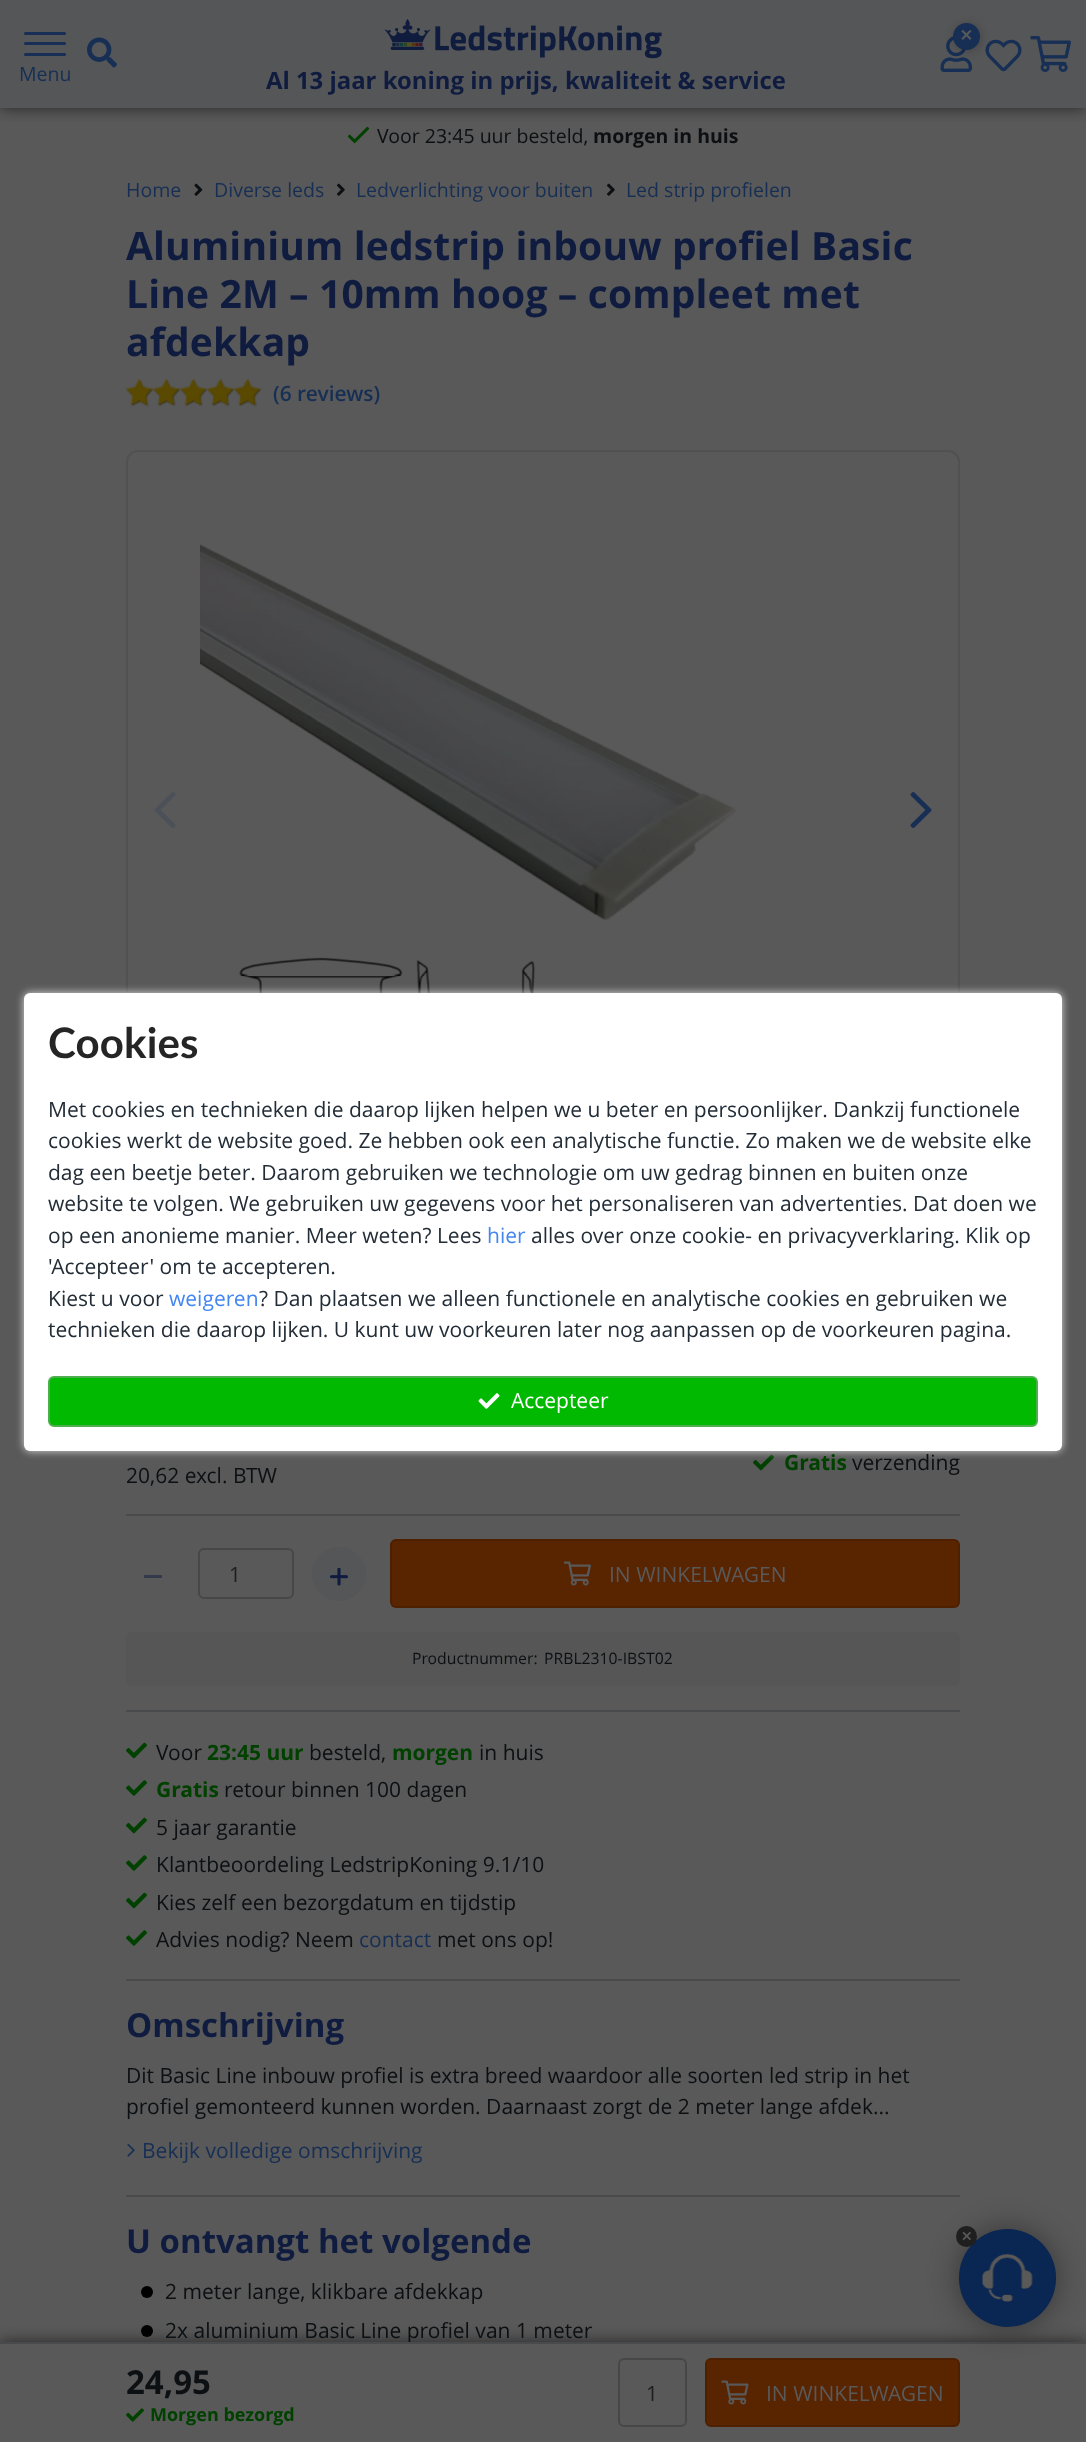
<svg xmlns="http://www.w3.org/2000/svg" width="1086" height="2442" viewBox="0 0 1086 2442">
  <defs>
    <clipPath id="clip1"><path d="M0 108h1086v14H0z"/></clipPath>
  </defs>
  <rect width="100%" height="100%" fill="#595959"/>
  <path d="M0 0h1086v108H0z" fill="#555658"/>
  <image x="347" y="126" width="23" height="18" href="img/7.png"/>
  <g clip-path="url(#clip1)">
    <path d="M0 0h1086v108H0z" fill="#00000099" filter="blur(7.5px)"/>
  </g>
  <image x="940" y="36" width="32" height="36" href="img/2.png"/>
  <rect x="954" y="24" width="27" height="27" rx="13.5" fill="#00000033" filter="blur(4px)"/>
  <circle cx="966.5" cy="36.5" r="13.5" fill="#172f54"/>
  <image x="961" y="30" width="11" height="10" href="img/1.png"/>
  <image x="985" y="39" width="37" height="33" href="img/3.png"/>
  <image x="1030" y="36" width="41" height="36" href="img/4.png"/>
  <image x="87" y="37" width="30" height="31" href="img/5.png"/>
  <rect x="24" y="32" width="42" height="3" rx="1.5" fill="#172f54"/>
  <rect x="24" y="42" width="42" height="3" rx="1.5" fill="#172f54"/>
  <rect x="24" y="53" width="42" height="3" rx="1.5" fill="#172f54"/>
  <image x="384" y="19" width="278" height="40" href="img/6.png"/>
  <image x="194" y="183" width="9" height="13" href="img/8.png"/>
  <image x="337" y="183" width="8" height="13" href="img/9.png"/>
  <image x="607" y="183" width="8" height="13" href="img/9.png"/>
  <image x="126" y="379" width="135" height="28" href="img/10.png"/>
  <rect x="127" y="451" width="832" height="718" rx="11" fill="none" stroke="#505151" stroke-width="2"/>
  <image x="154" y="792" width="22" height="36" href="img/11.png"/>
  <image x="200" y="544" width="665" height="449" href="img/12.png"/>
  <image x="910" y="792" width="22" height="36" href="img/13.png"/>
  <path d="M126 1514h834v2H126z" fill="#484a4c"/>
  <image x="753" y="1454" width="21" height="17" href="img/14.png"/>
  <path d="M144 1575h18v3H144z" fill="#333a4c"/>
  <rect x="199" y="1549" width="94" height="49" rx="5" fill="none" stroke="#474747" stroke-width="2"/>
  <circle cx="339" cy="1574" r="27" fill="#555658"/>
  <image x="330" y="1568" width="18" height="18" href="img/15.png"/>
  <rect x="390" y="1539" width="570" height="69" rx="6" fill="#592400"/>
  <rect x="391" y="1540" width="568" height="67" rx="5" fill="none" stroke="#0000001a" stroke-width="2"/>
  <image x="564" y="1561" width="27" height="25" href="img/16.png"/>
  <rect x="126" y="1632" width="834" height="54" rx="6" fill="#565656"/>
  <path d="M126 1710h834v2H126z" fill="#484a4c"/>
  <path d="M126 1979h834v2H126z" fill="#484a4c"/>
  <image x="126" y="1742" width="21" height="17" href="img/14.png"/>
  <image x="126" y="1780" width="21" height="16" href="img/17.png"/>
  <image x="126" y="1817" width="21" height="17" href="img/14.png"/>
  <image x="126" y="1855" width="21" height="16" href="img/17.png"/>
  <image x="126" y="1892" width="21" height="17" href="img/14.png"/>
  <image x="126" y="1930" width="21" height="16" href="img/17.png"/>
  <image x="127" y="2143" width="8" height="14" href="img/18.png"/>
  <path d="M126 2195h834v2H126z" fill="#484a4c"/>
  <circle cx="147" cy="2292" r="6" fill="#000"/>
  <circle cx="147" cy="2331" r="6" fill="#000"/>
  <path d="M0 2342h1086v100H0z" fill="#00000099" filter="blur(7.5px)"/>
  <path d="M0 2344h1086v98H0z" fill="#595959"/>
  <image x="126" y="2408" width="18" height="14" href="img/19.png"/>
  <rect x="619" y="2359" width="67" height="67" rx="5" fill="none" stroke="#474747" stroke-width="2"/>
  <rect x="705" y="2358" width="255" height="69" rx="6" fill="#592400"/>
  <rect x="706" y="2359" width="253" height="67" rx="5" fill="none" stroke="#0000001a" stroke-width="2"/>
  <image x="721" y="2380" width="28" height="25" href="img/20.png"/>
  <rect x="24" y="993" width="1038" height="458" rx="6" fill="#ddd" filter="blur(4px)"/>
  <rect x="24" y="993" width="1038" height="458" rx="6" fill="#fff"/>
  <rect x="49" y="1377" width="988" height="49" rx="5" fill="#00b900" stroke="#4cae4c" stroke-width="2"/>
  <image x="478" y="1393" width="22" height="16" href="img/23.png"/>
  <text x="19" y="81" font-family="Open Sans" font-size="19.5" fill="#172f54">Menu</text>
  <text x="266" y="89" font-family="Open Sans" font-size="23.9" font-weight="bold" fill="#0f1c3f">Al 13 jaar koning in prijs, kwaliteit &amp; service</text>
  <text x="377" y="143" font-family="Open Sans" font-size="19.5" fill="#0c1013">Voor 23:45 uur besteld,</text>
  <text x="593" y="143" font-family="Open Sans" font-size="19.5" font-weight="bold" fill="#0c1013">morgen in huis</text>
  <g font-family="Open Sans" font-size="19.5" fill="#172f54">
    <text x="126" y="197">Home</text>
    <text x="214" y="197">Diverse leds</text>
    <text x="356" y="197">Ledverlichting voor buiten</text>
    <text x="626" y="197">Led strip profielen</text>
  </g>
  <g font-family="Open Sans" font-size="39" font-weight="bold" letter-spacing="0.15" fill="#0f1c3f">
    <text x="126" y="260">Aluminium ledstrip inbouw profiel Basic</text>
    <text x="126" y="308">Line 2M – 10mm hoog – compleet met</text>
    <text x="126" y="356">afdekkap</text>
  </g>
  <text x="273" y="401" font-family="Open Sans" font-size="21" font-weight="600" fill="#172f54">(6 reviews)</text>
  <text x="126" y="1483" font-family="Open Sans" font-size="21" fill="#0c1013">20,62 excl. BTW</text>
  <text x="784" y="1470" font-family="Open Sans" font-size="21" font-weight="bold" fill="#004100">Gratis</text>
  <text x="852" y="1470" font-family="Open Sans" font-size="21" fill="#0c1013">verzending</text>
  <text x="229" y="1582" font-family="Open Sans" font-size="21" fill="#1e1e1e">1</text>
  <text x="609" y="1582" font-family="Open Sans" font-size="21" fill="#595959">IN WINKELWAGEN</text>
  <g font-family="Open Sans" font-size="15.75" fill="#0c1013">
    <text x="412" y="1664">Productnummer:</text>
    <text x="544" y="1664">PRBL2310-IBST02</text>
  </g>
  <text x="156" y="1760" font-family="Open Sans" font-size="21" fill="#0c1013">Voor</text>
  <text x="207" y="1760" font-family="Open Sans" font-size="21" font-weight="bold" fill="#004100">23:45 uur</text>
  <text x="309" y="1760" font-family="Open Sans" font-size="21" fill="#0c1013">besteld,</text>
  <text x="392" y="1760" font-family="Open Sans" font-size="21" font-weight="bold" fill="#004100">morgen</text>
  <text x="479" y="1760" font-family="Open Sans" font-size="21" fill="#0c1013">in huis</text>
  <text x="156" y="1797" font-family="Open Sans" font-size="21" font-weight="bold" fill="#004100">Gratis</text>
  <g font-family="Open Sans" font-size="21" fill="#0c1013">
    <text x="224" y="1797">retour binnen 100 dagen</text>
    <text x="156" y="1835">5 jaar garantie</text>
    <text x="156" y="1872">Klantbeoordeling LedstripKoning 9.1/10</text>
    <text x="156" y="1910">Kies zelf een bezorgdatum en tijdstip</text>
    <text x="156" y="1947">Advies nodig? Neem</text>
  </g>
  <text x="359" y="1947" font-family="Open Sans" font-size="21" fill="#172f54">contact</text>
  <text x="437" y="1947" font-family="Open Sans" font-size="21" fill="#0c1013">met ons op!</text>
  <text x="126" y="2037" font-family="Open Sans" font-size="33" font-weight="bold" fill="#0f1c3f">Omschrijving</text>
  <g font-family="Open Sans" font-size="21" fill="#0c1013">
    <text x="126" y="2083">Dit Basic Line inbouw profiel is extra breed waardoor alle soorten led strip in het</text>
    <text x="126" y="2114">profiel gemonteerd kunnen worden. Daarnaast zorgt de 2 meter lange afdek...</text>
  </g>
  <text x="142" y="2158" font-family="Open Sans" font-size="21" fill="#172f54">Bekijk volledige omschrijving</text>
  <text x="126" y="2253" font-family="Open Sans" font-size="33" font-weight="bold" fill="#0f1c3f">U ontvangt het volgende</text>
  <g font-family="Open Sans" font-size="21" fill="#0c1013">
    <text x="165" y="2299">2 meter lange, klikbare afdekkap</text>
    <text x="165" y="2338">2x aluminium Basic Line profiel van 1 meter</text>
  </g>
  <path d="M0 2342h1086v2H0z" fill="#484a4c"/>
  <text x="126" y="2394" font-family="Open Sans" font-size="33" font-weight="bold" fill="#0c1013">24,95</text>
  <text x="150" y="2421" font-family="Open Sans" font-size="18" font-weight="bold" fill="#004100">Morgen bezorgd</text>
  <text x="646" y="2401" font-family="Open Sans" font-size="21" fill="#1e1e1e">1</text>
  <text x="766" y="2401" font-family="Open Sans" font-size="21" fill="#595959">IN WINKELWAGEN</text>
  <rect x="959" y="2229" width="97" height="98" rx="48.5" fill="#00000066" filter="blur(15px)"/>
  <rect x="959" y="2229" width="97" height="98" rx="48.5" fill="#0a2652"/>
  <circle cx="966.5" cy="2236.5" r="10.5" fill="#1f1f1f"/>
  <image x="962" y="2231" width="9" height="10" href="img/21.png"/>
  <image x="982" y="2253" width="51" height="49" href="img/22.png"/>
  <text x="48" y="1058" font-family="Lato" font-size="42" font-weight="bold" letter-spacing="0.15" fill="#262526">Cookies</text>
  <g font-family="Open Sans" font-size="21" fill="#232d37">
    <text x="48" y="1117">Met cookies en technieken die daarop lijken helpen we u beter en persoonlijker. Dankzij functionele</text>
    <text x="48" y="1148">cookies werkt de website goed. Ze hebben ook een analytische functie. Zo maken we de website elke</text>
    <text x="48" y="1180">dag een beetje beter. Daarom gebruiken we technologie om uw gedrag binnen en buiten onze</text>
    <text x="48" y="1211">website te volgen. We gebruiken uw gegevens voor het personaliseren van advertenties. Dat doen we</text>
    <text x="48" y="1243">op een anonieme manier. Meer weten? Lees</text>
  </g>
  <text x="487" y="1243" font-family="Open Sans" font-size="21" fill="#4386f0">hier</text>
  <g font-family="Open Sans" font-size="21" fill="#232d37">
    <text x="531" y="1243">alles over onze cookie- en privacyverklaring. Klik op</text>
    <text x="48" y="1274">'Accepteer' om te accepteren.</text>
    <text x="48" y="1306">Kiest u voor</text>
  </g>
  <text x="169" y="1306" font-family="Open Sans" font-size="21" fill="#4386f0">weigeren</text>
  <g font-family="Open Sans" font-size="21" fill="#232d37">
    <text x="259" y="1306">? Dan plaatsen we alleen functionele en analytische cookies en gebruiken we</text>
    <text x="48" y="1337">technieken die daarop lijken. U kunt uw voorkeuren later nog aanpassen op de voorkeuren pagina.</text>
  </g>
  <text x="511" y="1408" font-family="Open Sans" font-size="21" fill="#fff">Accepteer</text>
</svg>
